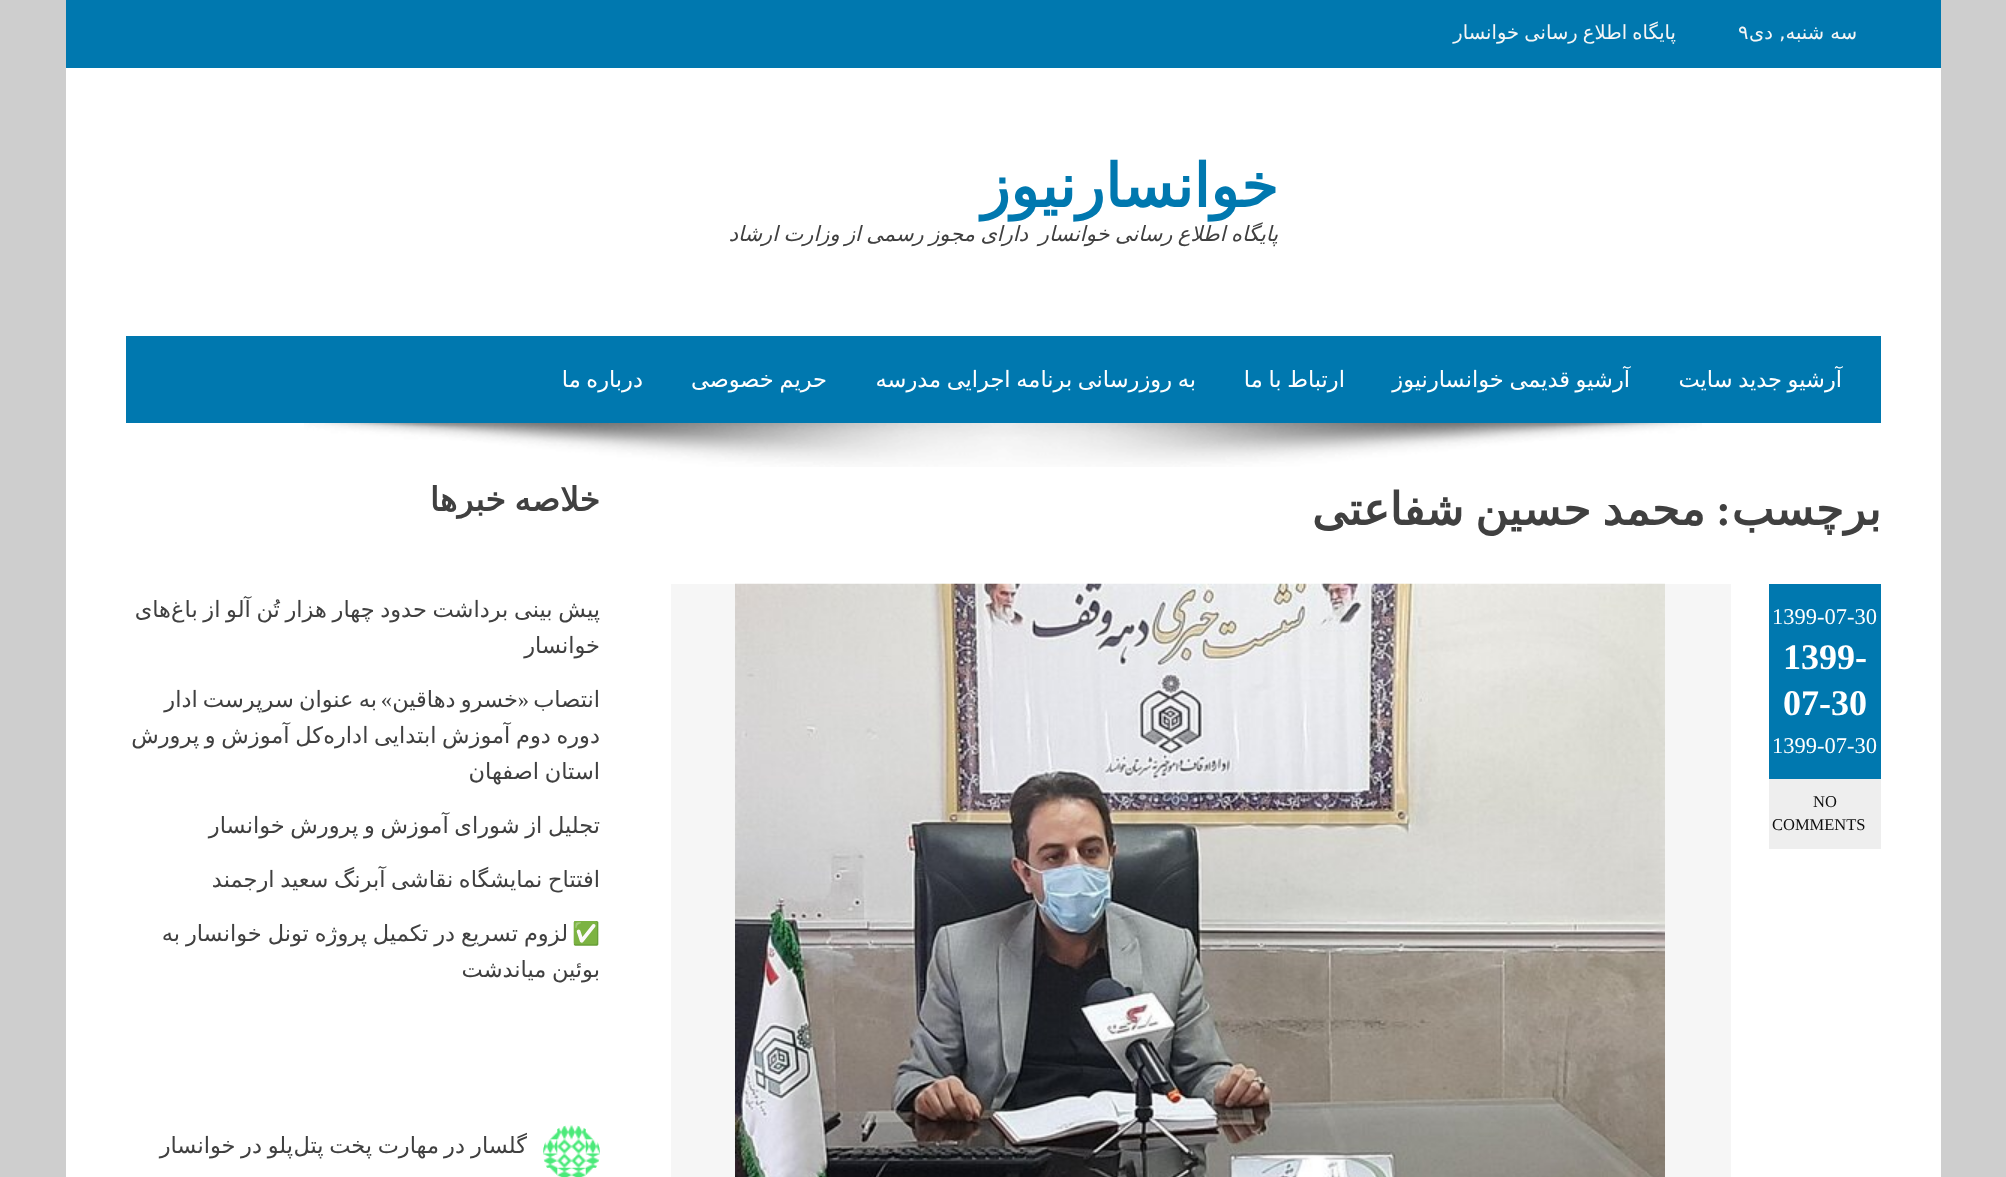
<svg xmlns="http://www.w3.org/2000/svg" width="2006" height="1177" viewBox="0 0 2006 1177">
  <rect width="100%" height="100%" fill="#cecece"/>
  <path d="M66 68h1875v1109H66z" fill="#fff"/>
  <path d="M66 0h1875v68H66z" fill="#0078af"/>
  <path d="M126 336h1755v87H126z" fill="#0078af"/>
  <image x="304" y="423" width="1398" height="44" href="img/1.png"/>
  <path d="M1769 584h112v195H1769z" fill="#0078af"/>
  <path d="M1769 779h112v70H1769z" fill="#eee"/>
  <path d="M671 584h1060v593H671z" fill="#f6f6f6"/>
  <image x="735" y="583" width="930" height="594" href="img/2.png"/>
  <image x="543" y="1125" width="57" height="52" href="img/3.png"/>
  <text x="1857" y="39" font-family="DejaVu Sans" font-size="19.5" direction="rtl" fill="#f6f6f6">سه شنبه, دی</text>
  <text x="1738" y="39" font-family="DejaVu Sans" font-size="19.5" fill="#f6f6f6">۹</text>
  <text x="1676" y="39" word-spacing="-1" font-family="DejaVu Sans" font-size="19.5" direction="rtl" fill="#f6f6f6">پایگاه اطلاع رسانی خوانسار</text>
  <text x="1278" y="207" font-family="DejaVu Sans" font-size="60" font-weight="bold" direction="rtl" fill="#0078af">خوانسارنیوز</text>
  <g font-family="DejaVu Sans" font-size="21" font-style="italic" direction="rtl" fill="#404040">
    <text x="1278" y="241" word-spacing="-1.25">پایگاه اطلاع رسانی خوانسار</text>
    <text x="1028" y="241" word-spacing="-1.25">دارای مجوز رسمی از وزارت ارشاد</text>
  </g>
  <g font-family="DejaVu Sans" font-size="22.5" direction="rtl" fill="#fff">
    <text x="1842" y="387" word-spacing="-1.5">آرشیو جدید سایت</text>
    <text x="1630" y="387" word-spacing="-1.5">آرشیو قدیمی خوانسارنیوز</text>
    <text x="1345" y="387" word-spacing="-1.5">ارتباط با ما</text>
    <text x="1196" y="387" word-spacing="-1.5">به روزرسانی برنامه اجرایی مدرسه</text>
    <text x="827" y="387" word-spacing="-1.5">حریم خصوصی</text>
    <text x="643" y="387" word-spacing="-1.5">درباره ما</text>
  </g>
  <text x="1881" y="525" font-family="DejaVu Sans" font-size="45" font-weight="bold" direction="rtl" fill="#404040">برچسب</text>
  <text x="1731" y="525" font-family="Liberation Serif" font-size="45" font-weight="bold" direction="rtl" fill="#404040">:</text>
  <text x="1705" y="525" word-spacing="-3" font-family="DejaVu Sans" font-size="45" font-weight="bold" direction="rtl" fill="#404040">محمد حسین شفاعتی</text>
  <text x="1772" y="624" font-family="Liberation Serif" font-size="22.5" fill="#fff">1399-07-30</text>
  <g font-family="Liberation Serif" font-size="36" font-weight="bold" fill="#fff">
    <text x="1783" y="669">1399-</text>
    <text x="1783" y="715">07-30</text>
  </g>
  <text x="1772" y="753" font-family="Liberation Serif" font-size="22.5" fill="#fff">1399-07-30</text>
  <g font-family="Liberation Serif" font-size="16.5" fill="#0e0e0e">
    <text x="1813" y="807">NO</text>
    <text x="1772" y="830">COMMENTS</text>
  </g>
  <text x="600" y="511" word-spacing="-2" font-family="DejaVu Sans" font-size="33" font-weight="bold" direction="rtl" fill="#404040">خلاصه خبرها</text>
  <g font-family="DejaVu Sans" font-size="22.5" direction="rtl" fill="#404040">
    <text x="600" y="617" word-spacing="-1.5">پیش بینی برداشت حدود چهار هزار تُن آلو از باغ</text>
    <text x="171" y="617">های</text>
    <text x="600" y="653">خوانسار</text>
    <text x="600" y="707">انتصاب</text>
  </g>
  <text x="529" y="707" font-family="Liberation Serif" font-size="22.5" direction="rtl" fill="#404040">«</text>
  <g font-family="DejaVu Sans" font-size="22.5" direction="rtl" fill="#404040">
    <text x="518" y="707" word-spacing="-2">خسرو دهاقین</text>
    <text x="377" y="707" word-spacing="-2">به عنوان سرپرست ادار</text>
  </g>
  <text x="392" y="707" font-family="Liberation Serif" font-size="22.5" direction="rtl" fill="#404040">»</text>
  <g font-family="DejaVu Sans" font-size="22.5" direction="rtl" fill="#404040">
    <text x="323" y="743" word-spacing="-1.5">کل آموزش و پرورش</text>
    <text x="600" y="743" word-spacing="-1.5">دوره دوم آموزش ابتدایی اداره</text>
    <text x="600" y="779" word-spacing="-1.5">استان اصفهان</text>
    <text x="600" y="833" word-spacing="-1.5">تجلیل از شورای آموزش و پرورش خوانسار</text>
    <text x="600" y="887" word-spacing="-1.5">افتتاح نمایشگاه نقاشی آبرنگ سعید ارجمند</text>
    <text x="568" y="941" word-spacing="-1.25">لزوم تسریع در تکمیل پروژه تونل خوانسار به</text>
  </g>
  <text x="600" y="941" font-family="Noto Color Emoji" font-size="22.5" direction="rtl" fill="#404040">✅</text>
  <g font-family="DejaVu Sans" font-size="22.5" direction="rtl" fill="#404040">
    <text x="600" y="977" word-spacing="-1.5">بوئین میاندشت</text>
    <text x="527" y="1153">گلسار</text>
    <text x="465" y="1153">در</text>
    <text x="293" y="1153" word-spacing="-1.5">پلو در خوانسار</text>
    <text x="439" y="1153" word-spacing="-1.5">مهارت پخت پتل</text>
  </g>
</svg>
